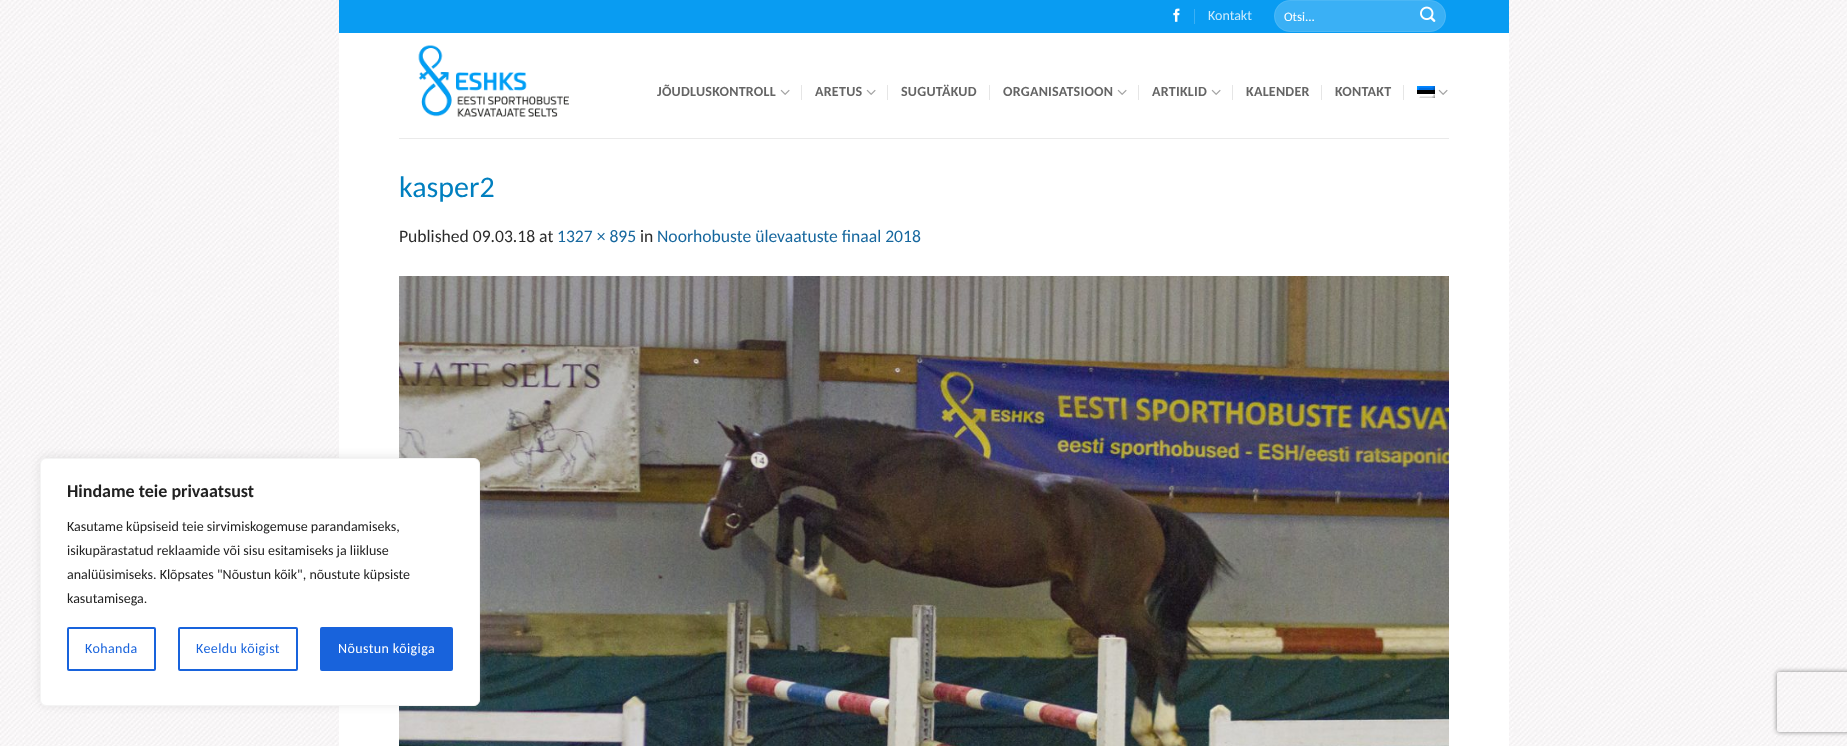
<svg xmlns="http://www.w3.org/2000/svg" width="1847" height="746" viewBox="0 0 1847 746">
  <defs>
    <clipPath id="clip1"><path d="M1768 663H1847V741H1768ZM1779 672H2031C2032 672 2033 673 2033 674V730C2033 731 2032 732 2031 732H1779C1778 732 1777 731 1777 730V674C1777 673 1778 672 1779 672Z" clip-rule="evenodd"/></clipPath>
  </defs>
  <rect width="100%" height="100%" fill="#fff"/>
  <image x="0" y="0" width="1847" height="746" href="img/1.png"/>
  <path d="M339 33h1170v713H339z" fill="#fff"/>
  <path d="M339 0h1170v33H339z" fill="#099cf2"/>
  <image x="1173" y="8" width="7" height="14" href="img/2.png"/>
  <path d="M1194 9h1v15H1194z" fill="#3ab0f5"/>
  <rect x="1274" width="172" height="32" rx="16" fill="#3ab0f5"/>
  <rect x="1274.5" y="0.5" width="171" height="31" rx="15.5" fill="none" stroke="#ffffff17"/>
  <image x="1420" y="6" width="16" height="16" href="img/3.png"/>
  <image x="418" y="45" width="151" height="72" href="img/4.png"/>
  <image x="780" y="89" width="10" height="6" href="img/5.png"/>
  <path d="M801 85h1v15H801z" fill="#e6e6e6"/>
  <image x="866" y="89" width="10" height="6" href="img/5.png"/>
  <path d="M887 85h1v15H887z" fill="#e6e6e6"/>
  <path d="M989 85h1v15H989z" fill="#e6e6e6"/>
  <image x="1117" y="89" width="10" height="6" href="img/5.png"/>
  <path d="M1138 85h1v15H1138z" fill="#e6e6e6"/>
  <image x="1211" y="89" width="10" height="6" href="img/5.png"/>
  <path d="M1232 85h1v15H1232z" fill="#e6e6e6"/>
  <path d="M1321 85h1v15H1321z" fill="#e6e6e6"/>
  <path d="M1403 85h1v15H1403z" fill="#e6e6e6"/>
  <image x="1417" y="86" width="18" height="12" href="img/6.png"/>
  <image x="1438" y="89" width="10" height="6" href="img/5.png"/>
  <path d="M399 138h1050v1H399z" fill="#eaeaea"/>
  <image x="399" y="276" width="1050" height="470" href="img/7.png"/>
  <rect x="40" y="457" width="440" height="248" rx="6" fill="#acabab4d" filter="blur(5px)"/>
  <rect x="40.5" y="458.5" width="439" height="247" rx="5.5" fill="#fff" stroke="#f4f4f4"/>
  <rect x="68" y="628" width="87" height="42" rx="1" fill="none" stroke="#1863dc" stroke-width="2"/>
  <rect x="179" y="628" width="118" height="42" rx="1" fill="none" stroke="#1863dc" stroke-width="2"/>
  <rect x="321" y="628" width="131" height="42" rx="1" fill="#1863dc" stroke="#1863dc" stroke-width="2"/>
  <g clip-path="url(#clip1)">
    <rect x="1777" y="672" width="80" height="60" rx="2" fill="#808080" filter="blur(2.5px)"/>
  </g>
  <text x="1208" y="20" font-family="Carlito" font-size="14" fill="#ceebfc">Kontakt</text>
  <text x="1284" y="21" font-family="Carlito" font-size="13" fill="#fff">Otsi...</text>
  <g font-family="Carlito" font-size="14" font-weight="bold" letter-spacing="0.25" fill="#656565">
    <text x="657" y="96">JÕUDLUSKONTROLL</text>
    <text x="815" y="96">ARETUS</text>
    <text x="901" y="96">SUGUTÄKUD</text>
    <text x="1003" y="96">ORGANISATSIOON</text>
    <text x="1152" y="96">ARTIKLID</text>
    <text x="1246" y="96">KALENDER</text>
    <text x="1335" y="96">KONTAKT</text>
  </g>
  <text x="399" y="197" font-family="Carlito" font-size="30" fill="#007fbf">kasper2</text>
  <text x="399" y="242" font-family="Carlito" font-size="17.6" fill="#2b2b2b">Published 09.03.18 at</text>
  <text x="557" y="242" font-family="Carlito" font-size="17.6" fill="#16679e">1327 × 895</text>
  <text x="640" y="242" font-family="Carlito" font-size="17.6" fill="#2b2b2b">in</text>
  <text x="657" y="242" font-family="Carlito" font-size="17.6" fill="#16679e">Noorhobuste ülevaatuste finaal 2018</text>
  <text x="67" y="497" font-family="Carlito" font-size="18" font-weight="bold" fill="#212121">Hindame teie privaatsust</text>
  <g font-family="Carlito" font-size="14" fill="#212121">
    <text x="67" y="531">Kasutame küpsiseid teie sirvimiskogemuse parandamiseks,</text>
    <text x="67" y="555">isikupärastatud reklaamide või sisu esitamiseks ja liikluse</text>
    <text x="67" y="579">analüüsimiseks. Klõpsates "Nõustun kõik", nõustute küpsiste</text>
    <text x="67" y="603">kasutamisega.</text>
  </g>
  <g font-family="Carlito" font-size="14" letter-spacing="0.4" fill="#1863dc">
    <text x="85" y="653">Kohanda</text>
    <text x="196" y="653">Keeldu kõigist</text>
  </g>
  <text x="338" y="653" font-family="Carlito" font-size="14" letter-spacing="0.4" fill="#fff">Nõustun kõigiga</text>
</svg>
